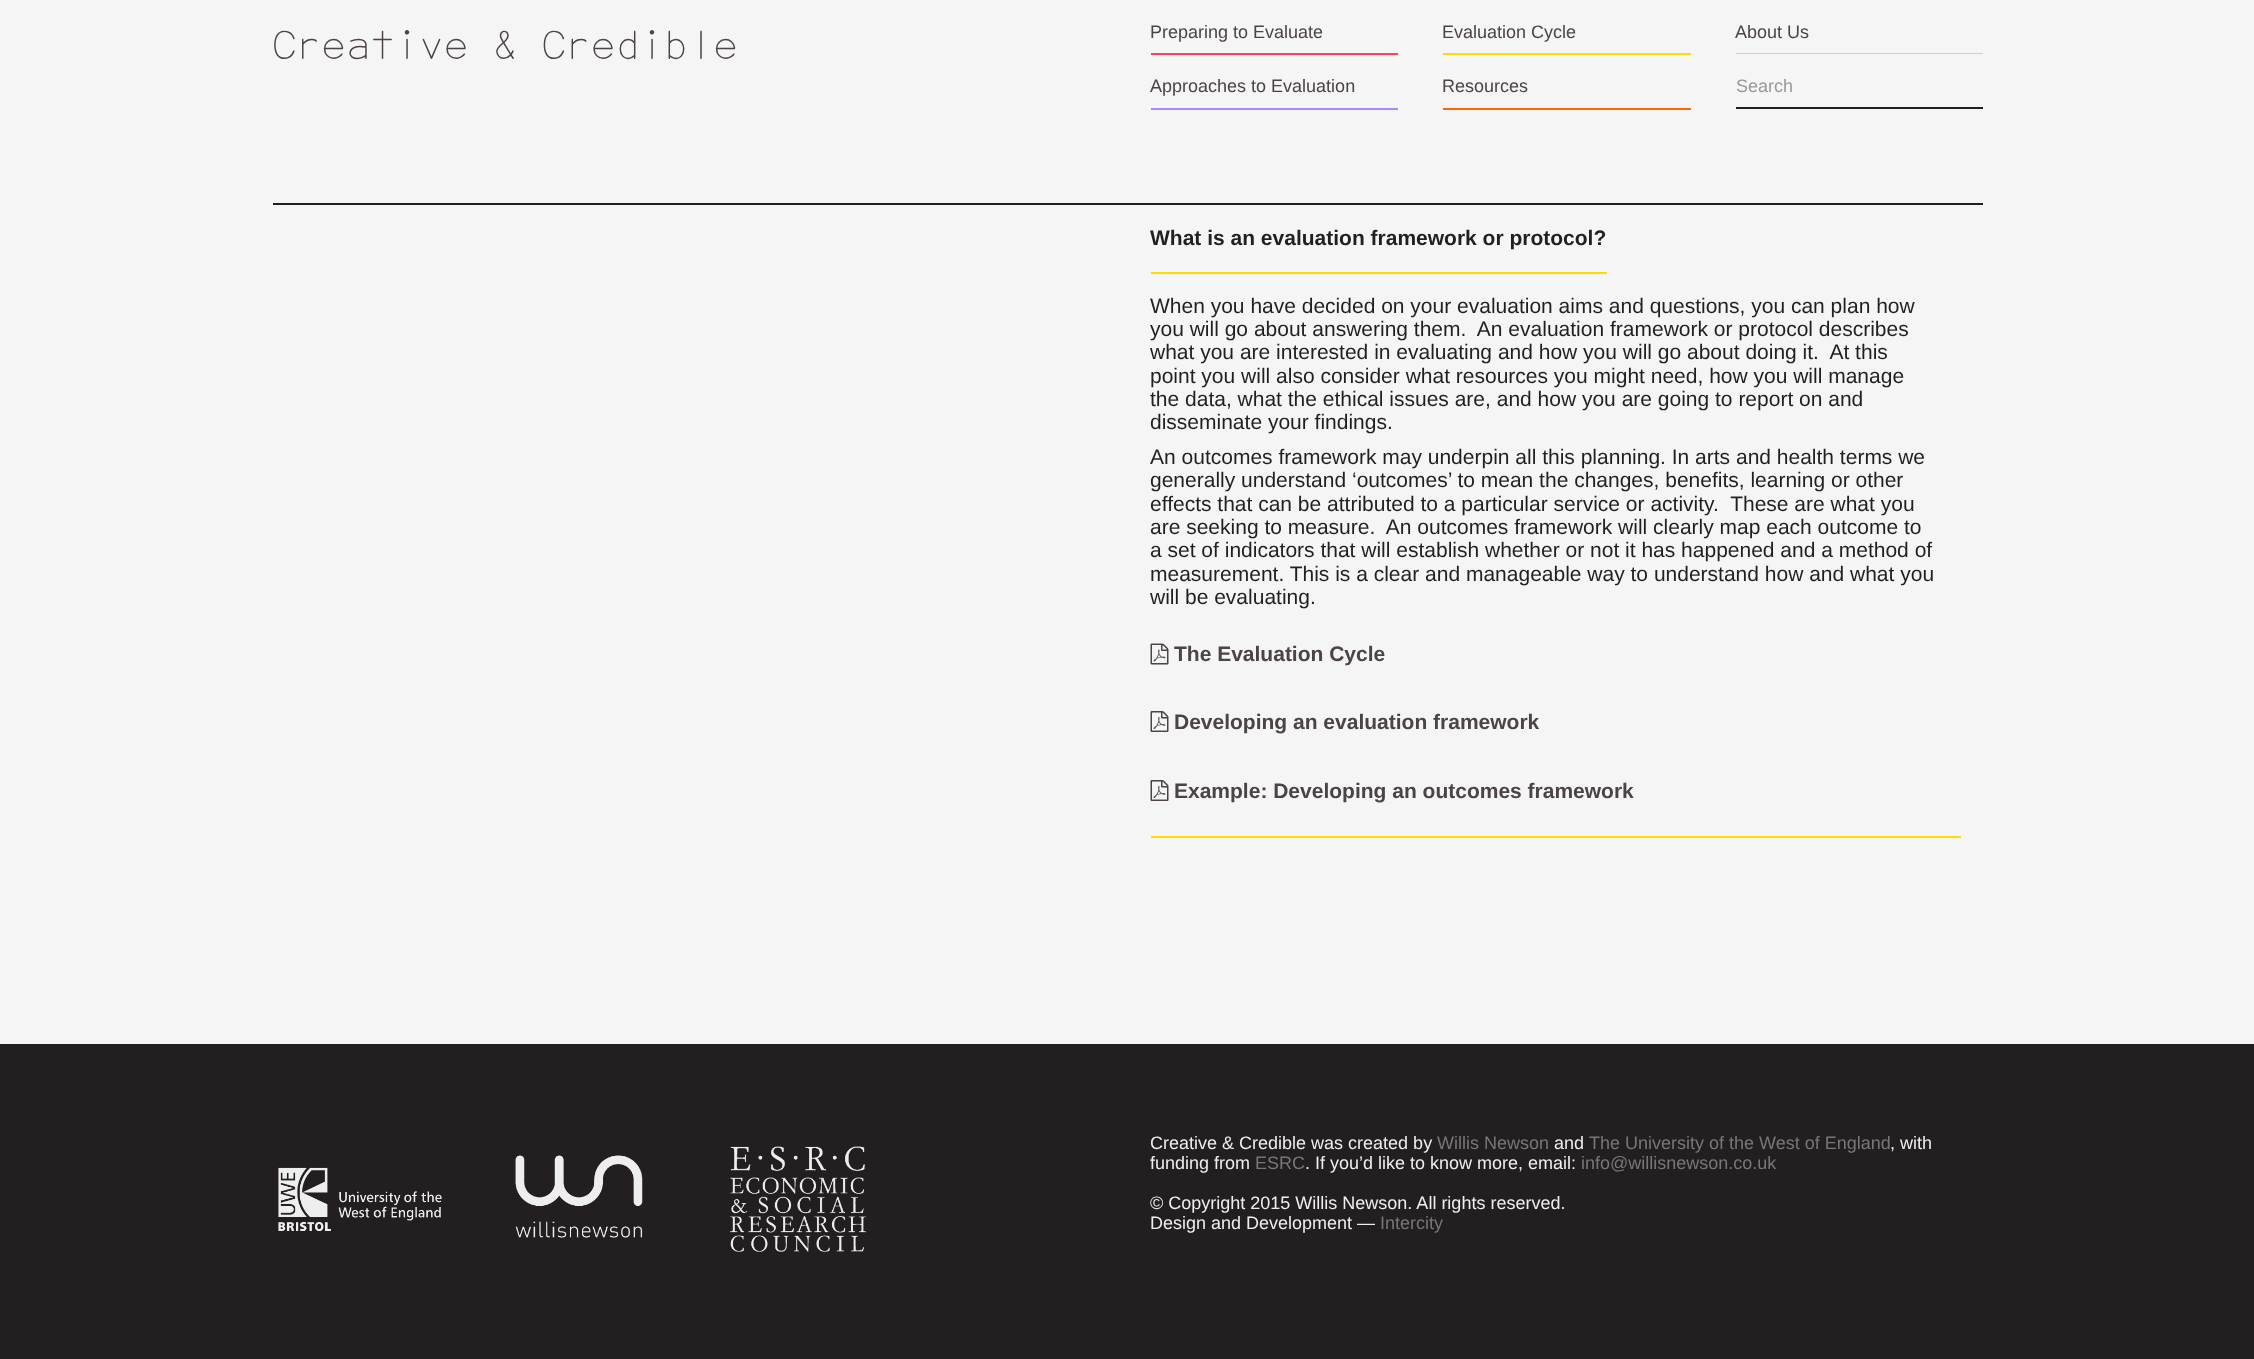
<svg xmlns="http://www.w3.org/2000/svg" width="2254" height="1359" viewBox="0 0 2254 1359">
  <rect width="100%" height="100%" fill="#f5f5f5"/>
  <path d="M1151 53h247v2H1151z" fill="#ff415f"/>
  <path d="M1151 108h247v2H1151z" fill="#a88aff"/>
  <path d="M1443 53h248v2H1443z" fill="#ffdb00"/>
  <path d="M1443 108h248v2H1443z" fill="#f60"/>
  <path d="M1736 53h247v1H1736z" fill="#6fffd6"/>
  <path d="M1736 107h247v2H1736z" fill="#231f20"/>
  <path d="M273 203h1710v2H273z" fill="#231f20"/>
  <path d="M1151 836h810v2H1151z" fill="#ffdb00"/>
  <path d="M1151 272h456v2H1151z" fill="#ffdb00"/>
  <image x="1150" y="643" width="19" height="22" href="img/1.png"/>
  <image x="1150" y="711" width="19" height="21" href="img/2.png"/>
  <image x="1150" y="780" width="19" height="21" href="img/2.png"/>
  <path d="M0 1044h2254v315H0z" fill="#231f20"/>
  <image x="278" y="1167" width="164" height="64" href="img/3.png"/>
  <image x="515" y="1155" width="128" height="83" href="img/4.png"/>
  <image x="730" y="1146" width="136" height="106" href="img/5.png"/>
  <text x="272" y="59" font-family="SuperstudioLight" font-size="40.5" font-weight="300" fill="#4c4345">Creative &amp; Credible</text>
  <g font-family="Liberation Sans" font-size="18" fill="#4c4345">
    <text x="1150" y="38">Preparing to Evaluate</text>
    <text x="1150" y="92">Approaches to Evaluation</text>
    <text x="1442" y="38">Evaluation Cycle</text>
    <text x="1442" y="92">Resources</text>
    <text x="1735" y="38">About Us</text>
  </g>
  <text x="1736" y="92" font-family="Liberation Sans" font-size="18" fill="#999">Search</text>
  <text x="1150" y="245" font-family="Liberation Sans" font-size="21" font-weight="bold" fill="#231f20">What is an evaluation framework or protocol?</text>
  <g font-family="Liberation Sans" font-size="21" fill="#231f20">
    <text x="1150" y="313">When you have decided on your evaluation aims and questions, you can plan how</text>
    <text x="1150" y="336" xml:space="preserve">you will go about answering them.  An evaluation framework or protocol describes</text>
    <text x="1150" y="359" xml:space="preserve">what you are interested in evaluating and how you will go about doing it.  At this</text>
    <text x="1150" y="383">point you will also consider what resources you might need, how you will manage</text>
    <text x="1150" y="406">the data, what the ethical issues are, and how you are going to report on and</text>
    <text x="1150" y="429">disseminate your findings.</text>
    <text x="1150" y="464">An outcomes framework may underpin all this planning. In arts and health terms we</text>
    <text x="1150" y="487">generally understand ‘outcomes’ to mean the changes, benefits, learning or other</text>
    <text x="1150" y="511" xml:space="preserve">effects that can be attributed to a particular service or activity.  These are what you</text>
    <text x="1150" y="534" xml:space="preserve">are seeking to measure.  An outcomes framework will clearly map each outcome to</text>
    <text x="1150" y="557">a set of indicators that will establish whether or not it has happened and a method of</text>
    <text x="1150" y="581">measurement. This is a clear and manageable way to understand how and what you</text>
    <text x="1150" y="604">will be evaluating.</text>
  </g>
  <g font-family="Liberation Sans" font-size="21" font-weight="bold" fill="#4c4345">
    <text x="1174" y="661">The Evaluation Cycle</text>
    <text x="1174" y="729">Developing an evaluation framework</text>
    <text x="1174" y="798">Example: Developing an outcomes framework</text>
  </g>
  <text x="1150" y="1149" font-family="Liberation Sans" font-size="18" fill="#eee">Creative &amp; Credible was created by</text>
  <text x="1437" y="1149" font-family="Liberation Sans" font-size="18" fill="#777">Willis Newson</text>
  <text x="1554" y="1149" font-family="Liberation Sans" font-size="18" fill="#eee">and</text>
  <text x="1589" y="1149" font-family="Liberation Sans" font-size="18" fill="#777">The University of the West of England</text>
  <g font-family="Liberation Sans" font-size="18" fill="#eee">
    <text x="1890" y="1149">, with</text>
    <text x="1150" y="1169">funding from</text>
  </g>
  <text x="1255" y="1169" font-family="Liberation Sans" font-size="18" fill="#777">ESRC</text>
  <text x="1305" y="1169" font-family="Liberation Sans" font-size="18" fill="#eee">. If you’d like to know more, email:</text>
  <text x="1581" y="1169" font-family="Liberation Sans" font-size="18" fill="#777">info@willisnewson.co.uk</text>
  <g font-family="Liberation Sans" font-size="18" fill="#eee">
    <text x="1150" y="1209">© Copyright 2015 Willis Newson. All rights reserved.</text>
    <text x="1150" y="1229">Design and Development —</text>
  </g>
  <text x="1380" y="1229" font-family="Liberation Sans" font-size="18" fill="#777">Intercity</text>
</svg>
